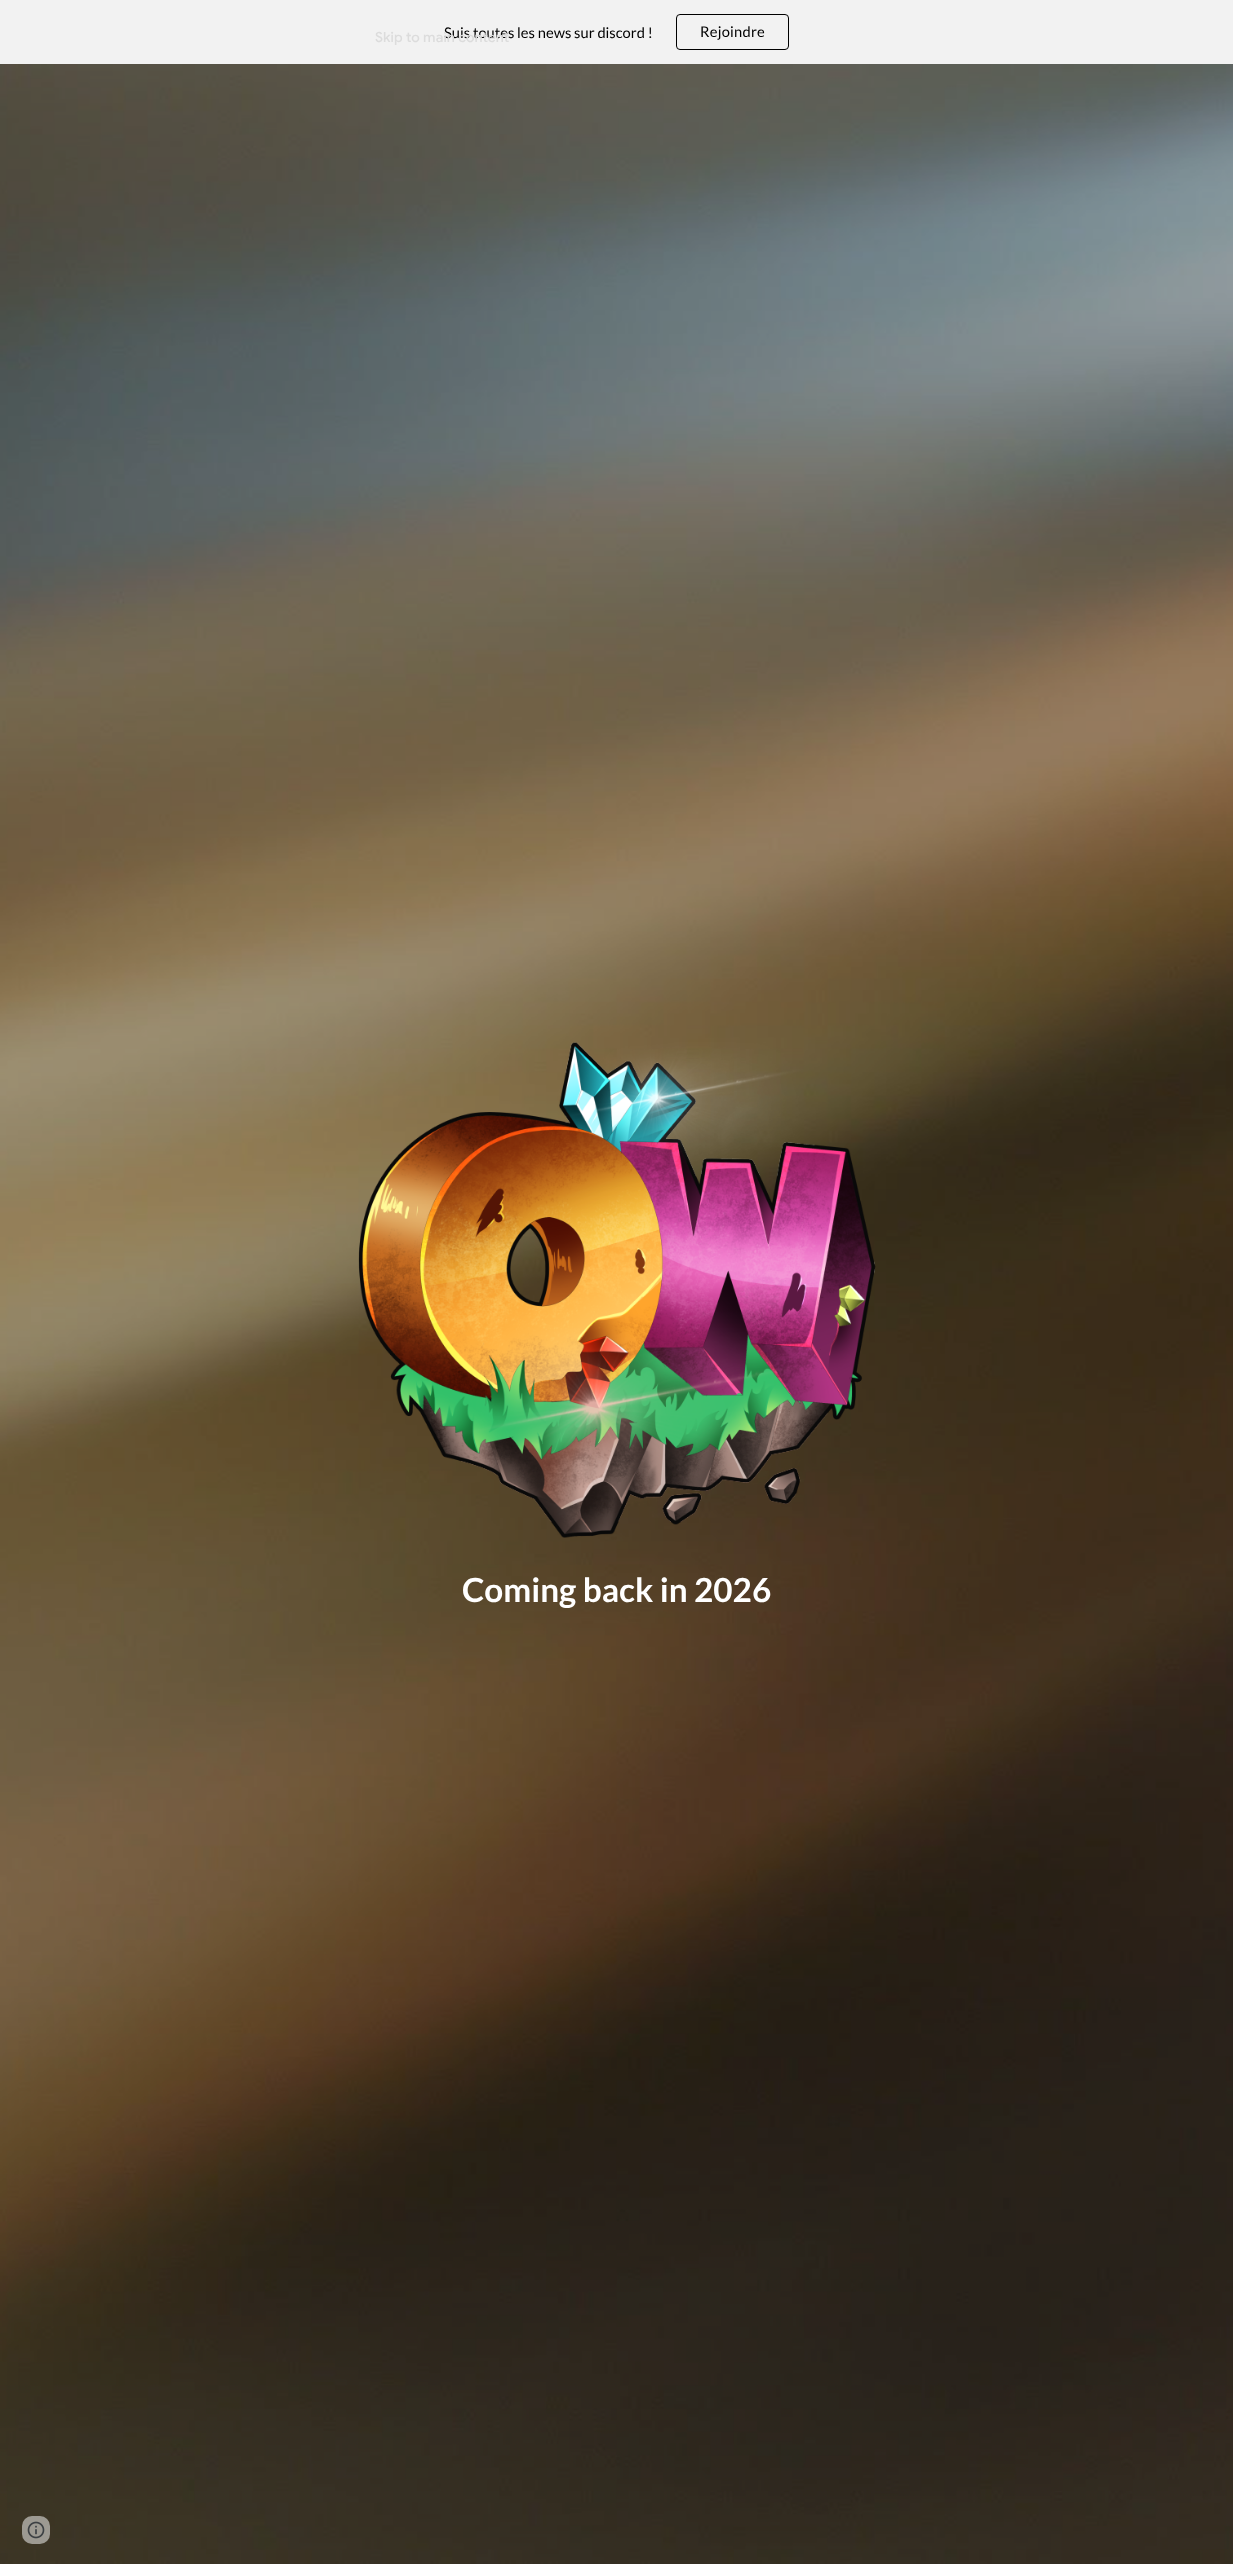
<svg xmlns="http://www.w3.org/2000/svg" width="1233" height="2564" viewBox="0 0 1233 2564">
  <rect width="100%" height="100%" fill="#fff"/>
  <path d="M0 0h1233v64H0z" fill="#f2f2f2"/>
  <rect x="676.5" y="14.5" width="112" height="35" rx="3.5" fill="none" stroke="#000"/>
  <image x="0" y="64" width="1233" height="2500" href="img/1.png"/>
  <image x="358" y="1042" width="518" height="496" href="img/2.png"/>
  <rect x="22" y="2516" width="28" height="28" rx="10" fill="#9d9a92"/>
  <image x="27" y="2521" width="18" height="18" href="img/3.png"/>
  <text x="444" y="38" font-family="Lato" font-size="14.7" fill="#000">Suis toutes les news sur discord !</text>
  <text x="375" y="42" font-family="Google Sans" font-size="14" font-weight="500" letter-spacing="0.1" fill="#dcdcdc">Skip to main content</text>
  <text x="700" y="37" font-family="Lato" font-size="14.7" letter-spacing="0.25" fill="#000">Rejoindre</text>
  <text x="462" y="1602" font-family="Lato" font-size="33.25" font-weight="bold" fill="#fff">Coming back in 2026</text>
</svg>
